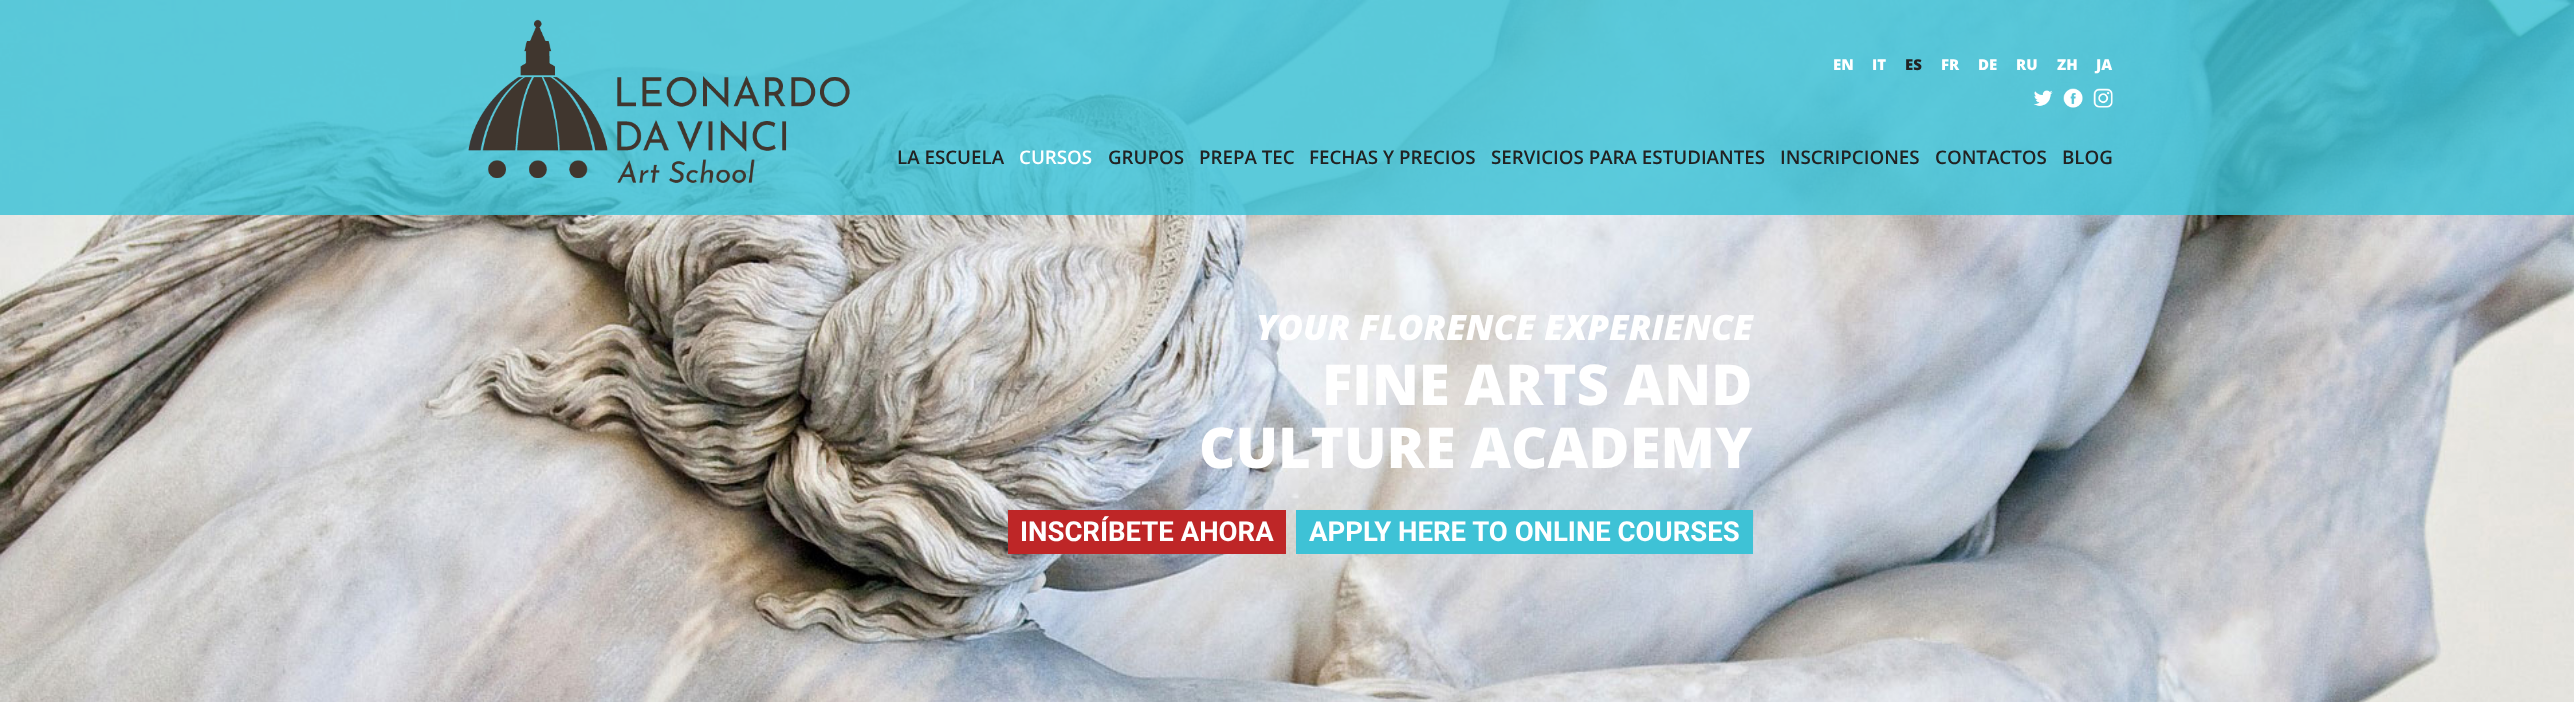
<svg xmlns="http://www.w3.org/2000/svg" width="2574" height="702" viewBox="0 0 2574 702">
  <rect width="100%" height="100%" fill="#fff"/>
  <image x="0" y="0" width="2574" height="702" href="img/5.png"/>
  <path d="M0 0h2574v215H0z" fill="#3ec2d6d6"/>
  <image x="468" y="19" width="382" height="164" href="img/1.png"/>
  <image x="2033" y="90" width="20" height="16" href="img/2.png"/>
  <image x="2063" y="88" width="20" height="20" href="img/3.png"/>
  <image x="2093" y="88" width="20" height="20" href="img/4.png"/>
  <path d="M1008 510h278v44H1008z" fill="#be2627"/>
  <path d="M1296 510h457v44H1296z" fill="#3ec2d6"/>
  <g font-family="Open Sans" font-size="15" font-weight="800" fill="#fff">
    <text x="1833" y="70">EN</text>
    <text x="1872" y="70">IT</text>
  </g>
  <text x="1905" y="70" font-family="Open Sans" font-size="15" font-weight="800" fill="#222">ES</text>
  <g font-family="Open Sans" font-size="15" font-weight="800" fill="#fff">
    <text x="1941" y="70">FR</text>
    <text x="1978" y="70">DE</text>
    <text x="2016" y="70">RU</text>
    <text x="2057" y="70">ZH</text>
    <text x="2096" y="70">JA</text>
  </g>
  <text x="897" y="164" font-family="Open Sans" font-size="18.75" font-weight="600" fill="#222">LA ESCUELA</text>
  <text x="1019" y="164" font-family="Open Sans" font-size="18.75" font-weight="600" fill="#fff">CURSOS</text>
  <g font-family="Open Sans" font-size="18.75" font-weight="600" fill="#222">
    <text x="1108" y="164">GRUPOS</text>
    <text x="1199" y="164">PREPA TEC</text>
    <text x="1309" y="164">FECHAS Y PRECIOS</text>
    <text x="1491" y="164">SERVICIOS PARA ESTUDIANTES</text>
    <text x="1780" y="164">INSCRIPCIONES</text>
    <text x="1935" y="164">CONTACTOS</text>
    <text x="2062" y="164">BLOG</text>
  </g>
  <text x="1256" y="340" font-family="Open Sans" font-size="35" font-weight="800" font-style="italic" fill="#fff">YOUR FLORENCE EXPERIENCE</text>
  <g font-family="Open Sans" font-size="56.25" font-weight="800" fill="#fff">
    <text x="1322" y="405">FINE ARTS AND</text>
    <text x="1199" y="468">CULTURE ACADEMY</text>
  </g>
  <g font-family="Roboto" font-size="27.5" font-weight="bold" fill="#fff">
    <text x="1020" y="541">INSCRÍBETE AHORA</text>
    <text x="1309" y="541">APPLY HERE TO ONLINE COURSES</text>
  </g>
</svg>
